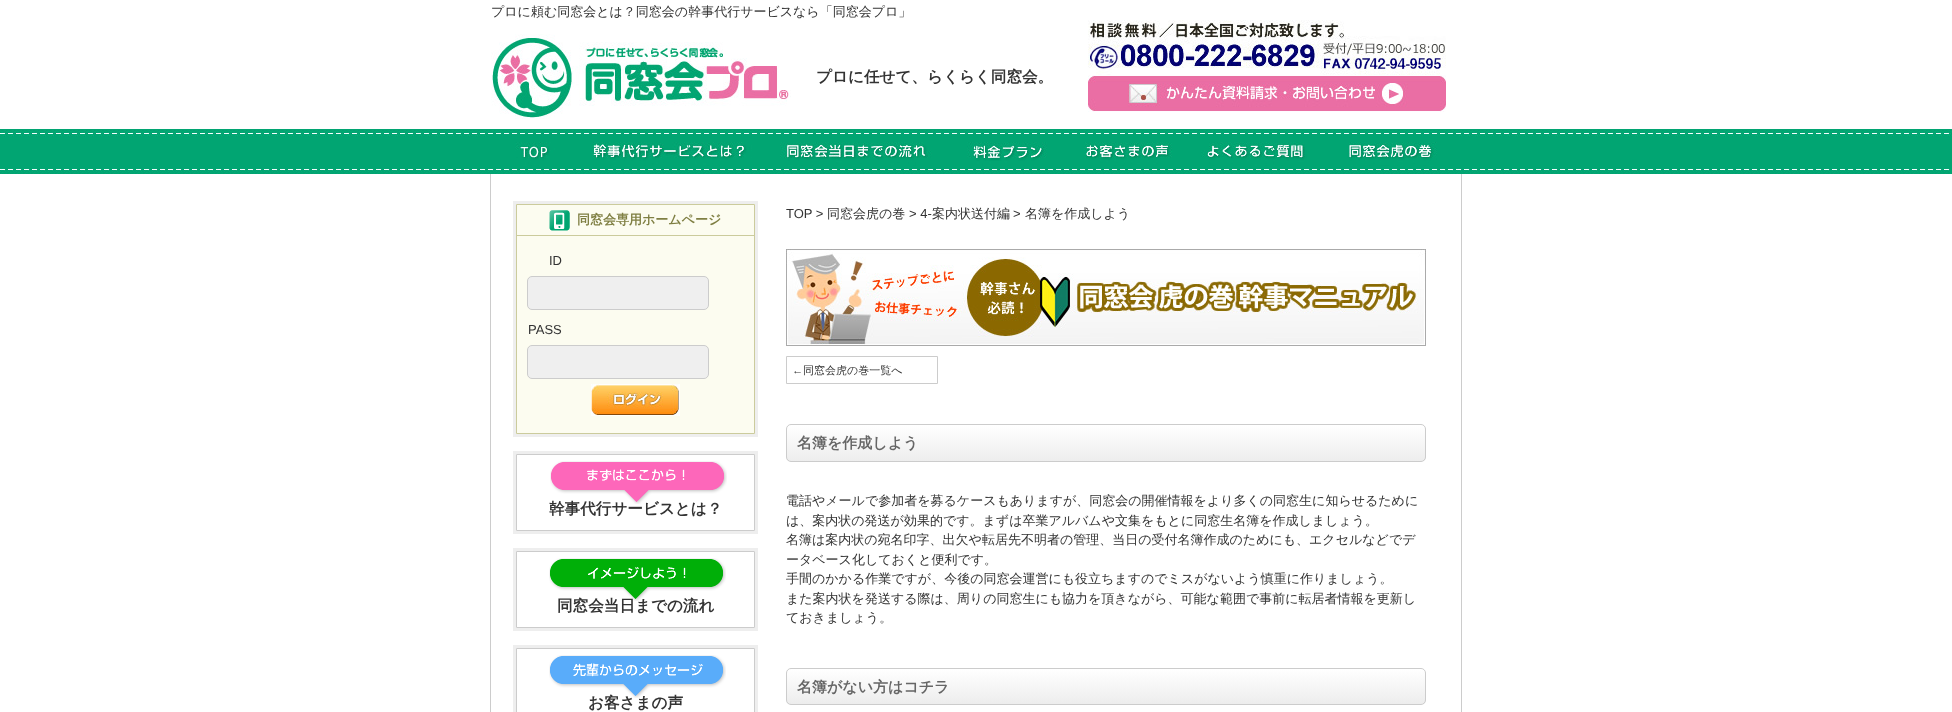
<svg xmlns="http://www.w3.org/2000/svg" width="1952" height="712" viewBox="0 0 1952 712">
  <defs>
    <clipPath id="clip1"><rect x="786" y="424" width="640" height="38" rx="5"/></clipPath>
    <linearGradient id="g1" gradientUnits="userSpaceOnUse" x1="1106" y1="425" x2="1106" y2="461"><stop offset="0" stop-color="#fff"/><stop offset="1" stop-color="#ededed"/></linearGradient>
    <clipPath id="clip2"><rect x="786" y="668" width="640" height="37" rx="5"/></clipPath>
    <linearGradient id="g2" gradientUnits="userSpaceOnUse" x1="1106" y1="669" x2="1106" y2="704"><stop offset="0" stop-color="#fff"/><stop offset="1" stop-color="#ededed"/></linearGradient>
  </defs>
  <rect width="100%" height="100%" fill="#fff"/>
  <image x="491" y="34" width="300" height="85" href="img/1.png"/>
  <image x="1088" y="20" width="358" height="55" href="img/2.png"/>
  <image x="1088" y="75" width="358" height="37" href="img/3.png"/>
  <path d="M0 129h1952v1H0z" fill="#01a572"/>
  <image x="0" y="130" width="1952" height="44" href="img/4.png"/>
  <image x="491" y="134" width="85" height="35" href="img/5.png"/>
  <image x="576" y="134" width="188" height="35" href="img/6.png"/>
  <image x="764" y="134" width="187" height="35" href="img/7.png"/>
  <image x="951" y="134" width="117" height="35" href="img/8.png"/>
  <image x="1068" y="134" width="117" height="35" href="img/9.png"/>
  <image x="1185" y="134" width="140" height="35" href="img/10.png"/>
  <image x="1325" y="134" width="130" height="35" href="img/11.png"/>
  <path d="M1461 174h1v538H1461z" fill="#ccc"/>
  <path d="M490 174h1v538H490z" fill="#ccc"/>
  <path d="M516.5 204.5h238v229H516.5z" fill="#fcfcf0" stroke="#cbcb9c"/>
  <path d="M517 235h237v1H517z" fill="#cbcb9c"/>
  <image x="549" y="210" width="21" height="21" href="img/12.png"/>
  <rect x="527.5" y="276.5" width="181" height="33" rx="4.5" fill="#efefef" stroke="#ccc"/>
  <rect x="527.5" y="345.5" width="181" height="33" rx="4.5" fill="#efefef" stroke="#ccc"/>
  <image x="591" y="384" width="89" height="32" href="img/13.png"/>
  <path d="M514.5 202.5h242v233H514.5z" fill="none" stroke="#eee" stroke-width="3"/>
  <path d="M516.5 454.5h238v76H516.5z" fill="none" stroke="#ccc"/>
  <image x="550" y="461" width="177" height="43" href="img/14.png"/>
  <path d="M514.5 452.5h242v80H514.5z" fill="none" stroke="#eee" stroke-width="3"/>
  <path d="M516.5 551.5h238v76H516.5z" fill="none" stroke="#ccc"/>
  <image x="549" y="558" width="177" height="43" href="img/15.png"/>
  <path d="M514.5 549.5h242v80H514.5z" fill="none" stroke="#eee" stroke-width="3"/>
  <path d="M516.5 648.5h238v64H516.5z" fill="none" stroke="#ccc"/>
  <image x="549" y="655" width="177" height="43" href="img/16.png"/>
  <path d="M514.5 646.5h242v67H514.5z" fill="none" stroke="#eee" stroke-width="3"/>
  <image x="786" y="249" width="640" height="97" href="img/17.png"/>
  <path d="M786.5 356.5h151v27H786.5z" fill="none" stroke="#ccc"/>
  <g clip-path="url(#clip1)">
    <path d="M786 425h640v36H786z" fill="url(#g1)"/>
  </g>
  <rect x="786.5" y="424.5" width="639" height="37" rx="4.5" fill="none" stroke="#ccc"/>
  <g clip-path="url(#clip2)">
    <path d="M786 669h640v35H786z" fill="url(#g2)"/>
  </g>
  <rect x="786.5" y="668.5" width="639" height="36" rx="4.5" fill="none" stroke="#ccc"/>
  <text x="491" y="16" font-family="WenQuanYi Zen Hei" font-size="13" font-weight="500" fill="#333">プロに頼む同窓会とは？同窓会の幹事代行サービスなら「同窓会プロ」</text>
  <text x="816" y="82" font-family="WenQuanYi Zen Hei" font-size="15.6" font-weight="bold" fill="#333">プロに任せて、らくらく同窓会。</text>
  <text x="577" y="224" font-family="WenQuanYi Zen Hei" font-size="13" font-weight="bold" fill="#7f7f43">同窓会専用ホームページ</text>
  <g font-family="Liberation Sans" font-size="13" fill="#333">
    <text x="549" y="265">ID</text>
    <text x="528" y="334">PASS</text>
  </g>
  <g font-family="WenQuanYi Zen Hei" font-size="15.6" font-weight="bold" fill="#333">
    <text x="549" y="514">幹事代行サービスとは？</text>
    <text x="557" y="611">同窓会当日までの流れ</text>
    <text x="588" y="708">お客さまの声</text>
  </g>
  <text x="786" y="218" font-family="Liberation Sans" font-size="13" fill="#333">TOP &gt;</text>
  <text x="827" y="218" font-family="WenQuanYi Zen Hei" font-size="13" font-weight="500" fill="#333">同窓会虎の巻</text>
  <text x="909" y="218" font-family="Liberation Sans" font-size="13" fill="#333">&gt; 4-</text>
  <text x="932" y="218" font-family="WenQuanYi Zen Hei" font-size="13" font-weight="500" fill="#333">案内状送付編</text>
  <text x="1013" y="218" font-family="Liberation Sans" font-size="13" fill="#333">&gt;</text>
  <text x="1025" y="218" font-family="WenQuanYi Zen Hei" font-size="13" font-weight="500" fill="#333">名簿を作成しよう</text>
  <text x="792" y="374" font-family="Liberation Sans" font-size="11" fill="#333">←</text>
  <text x="803" y="374" font-family="WenQuanYi Zen Hei" font-size="11" font-weight="500" fill="#333">同窓会虎の巻一覧へ</text>
  <text x="797" y="448" font-family="WenQuanYi Zen Hei" font-size="15" font-weight="bold" fill="#666">名簿を作成しよう</text>
  <g font-family="WenQuanYi Zen Hei" font-size="13" font-weight="500" fill="#333">
    <text x="786" y="505">電話やメールで参加者を募るケースもありますが、同窓会の開催情報をより多くの同窓生に知らせるために</text>
    <text x="786" y="525">は、案内状の発送が効果的です。まずは卒業アルバムや文集をもとに同窓生名簿を作成しましょう。</text>
    <text x="786" y="544">名簿は案内状の宛名印字、出欠や転居先不明者の管理、当日の受付名簿作成のためにも、エクセルなどでデ</text>
    <text x="786" y="564">ータベース化しておくと便利です。</text>
    <text x="786" y="583">手間のかかる作業ですが、今後の同窓会運営にも役立ちますのでミスがないよう慎重に作りましょう。</text>
    <text x="786" y="603">また案内状を発送する際は、周りの同窓生にも協力を頂きながら、可能な範囲で事前に転居者情報を更新し</text>
    <text x="786" y="622">ておきましょう。</text>
  </g>
  <text x="797" y="692" font-family="WenQuanYi Zen Hei" font-size="15" font-weight="bold" fill="#666">名簿がない方はコチラ</text>
</svg>
